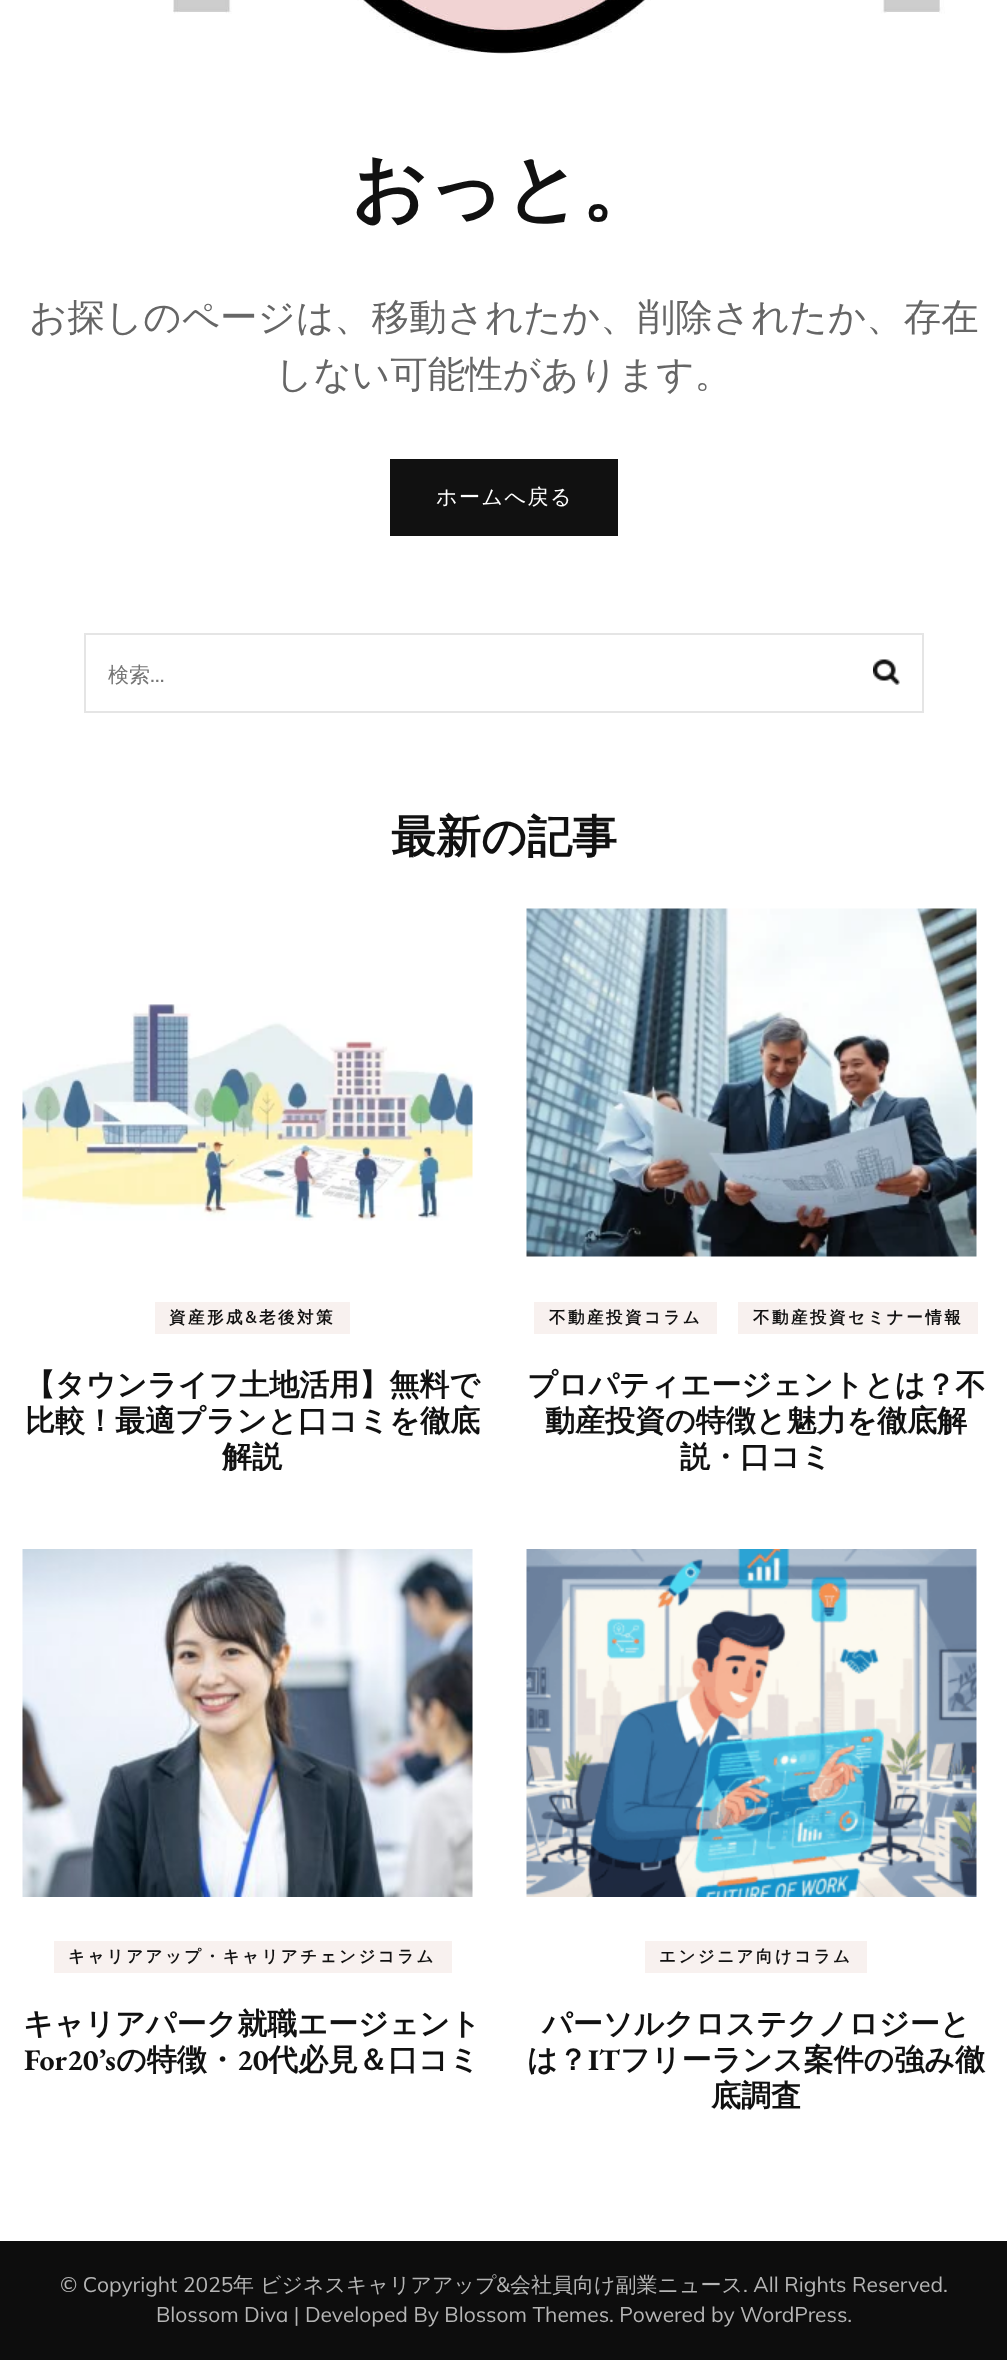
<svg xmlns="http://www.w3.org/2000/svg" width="1007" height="2360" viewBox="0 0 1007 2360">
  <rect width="100%" height="100%" fill="#fff"/>
  <image x="173" y="0" width="772" height="54" href="img/1.png"/>
  <path d="M390 459h228v77H390z" fill="#111"/>
  <path d="M85 634h838v78H85z" fill="none" stroke="#e5e5e5" stroke-width="2"/>
  <image x="873" y="659" width="27" height="26" href="img/2.png"/>
  <image x="22" y="1004" width="451" height="217" href="img/3.png"/>
  <path d="M155 1302h195v32H155z" fill="#f8f1ef"/>
  <image x="526" y="908" width="451" height="349" href="img/4.png"/>
  <path d="M534 1302h183v32H534z" fill="#f8f1ef"/>
  <path d="M738 1302h240v32H738z" fill="#f8f1ef"/>
  <image x="22" y="1549" width="451" height="348" href="img/5.png"/>
  <path d="M54 1941h398v32H54z" fill="#f8f1ef"/>
  <image x="526" y="1549" width="451" height="348" href="img/6.png"/>
  <path d="M645 1941h222v32H645z" fill="#f8f1ef"/>
  <path d="M0 2241h1007v119H0z" fill="#0d0d0d"/>
  <text x="351" y="214" font-family="WenQuanYi Zen Hei" font-size="75" font-weight="bold" fill="#111">おっと。</text>
  <g font-family="WenQuanYi Zen Hei" font-size="37.5" font-weight="500" fill="#666">
    <text x="29" y="330">お探しのページは、移動されたか、削除されたか、存在</text>
    <text x="275" y="387">しない可能性があります。</text>
  </g>
  <text x="436" y="504" font-family="WenQuanYi Zen Hei" font-size="21" font-weight="500" letter-spacing="1.5" fill="#fff">ホームへ戻る</text>
  <text x="108" y="682" font-family="WenQuanYi Zen Hei" font-size="21" font-weight="500" fill="#757575">検索</text>
  <text x="150" y="682" font-family="Muli" font-size="21" fill="#757575">…</text>
  <text x="391" y="852" font-family="WenQuanYi Zen Hei" font-size="45" font-weight="bold" fill="#111">最新の記事</text>
  <text x="169" y="1323" font-family="WenQuanYi Zen Hei" font-size="16.5" font-weight="bold" letter-spacing="2.5" fill="#111">資産形成</text>
  <text x="245" y="1323" font-family="Muli" font-size="16.5" font-weight="bold" letter-spacing="2.5" fill="#111">&amp;</text>
  <text x="259" y="1323" font-family="WenQuanYi Zen Hei" font-size="16.5" font-weight="bold" letter-spacing="2.5" fill="#111">老後対策</text>
  <g font-family="WenQuanYi Zen Hei" font-size="30" font-weight="bold" fill="#111">
    <text x="25" y="1395">【タウンライフ土地活用】無料で</text>
    <text x="25" y="1431">比較！最適プランと口コミを徹底</text>
    <text x="222" y="1467">解説</text>
  </g>
  <g font-family="WenQuanYi Zen Hei" font-size="16.5" font-weight="bold" letter-spacing="2.5" fill="#111">
    <text x="549" y="1323">不動産投資コラム</text>
    <text x="753" y="1323">不動産投資セミナー情報</text>
  </g>
  <g font-family="WenQuanYi Zen Hei" font-size="30" font-weight="bold" fill="#111">
    <text x="527" y="1395">プロパティエージェントとは？不</text>
    <text x="545" y="1431">動産投資の特徴と魅力を徹底解</text>
    <text x="680" y="1467">説・口コミ</text>
  </g>
  <text x="68" y="1962" font-family="WenQuanYi Zen Hei" font-size="16.5" font-weight="bold" letter-spacing="2.5" fill="#111">キャリアアップ・キャリアチェンジコラム</text>
  <text x="23" y="2034" font-family="WenQuanYi Zen Hei" font-size="30" font-weight="bold" fill="#111">キャリアパーク就職エージェント</text>
  <text x="24" y="2070" font-family="EB Garamond" font-size="30" font-weight="bold" fill="#111">For20’s</text>
  <text x="116" y="2070" font-family="WenQuanYi Zen Hei" font-size="30" font-weight="bold" fill="#111">の特徴・</text>
  <text x="237" y="2070" font-family="EB Garamond" font-size="30" font-weight="bold" fill="#111">20</text>
  <text x="268" y="2070" font-family="WenQuanYi Zen Hei" font-size="30" font-weight="bold" fill="#111">代必見＆口コミ</text>
  <text x="659" y="1962" font-family="WenQuanYi Zen Hei" font-size="16.5" font-weight="bold" letter-spacing="2.5" fill="#111">エンジニア向けコラム</text>
  <g font-family="WenQuanYi Zen Hei" font-size="30" font-weight="bold" fill="#111">
    <text x="542" y="2034">パーソルクロステクノロジーと</text>
    <text x="527" y="2070">は？</text>
  </g>
  <text x="588" y="2070" font-family="EB Garamond" font-size="30" font-weight="bold" fill="#111">IT</text>
  <g font-family="WenQuanYi Zen Hei" font-size="30" font-weight="bold" fill="#111">
    <text x="620" y="2070">フリーランス案件の強み徹</text>
    <text x="711" y="2106">底調査</text>
  </g>
  <text x="60" y="2292" font-family="Muli" font-size="21" fill="#b5b5b5">© Copyright 2025</text>
  <g font-family="WenQuanYi Zen Hei" font-size="21" font-weight="500" fill="#b5b5b5">
    <text x="233" y="2292">年</text>
    <text x="260" y="2292">ビジネスキャリアアップ</text>
  </g>
  <text x="496" y="2292" font-family="Muli" font-size="21" fill="#b5b5b5">&amp;</text>
  <text x="510" y="2292" font-family="WenQuanYi Zen Hei" font-size="21" font-weight="500" fill="#b5b5b5">会社員向け副業ニュース</text>
  <g font-family="Muli" font-size="21" fill="#b5b5b5">
    <text x="743" y="2292">. All Rights Reserved.</text>
    <text x="156" y="2322">Blossom Diva | Developed By Blossom Themes. Powered by WordPress.</text>
  </g>
</svg>
